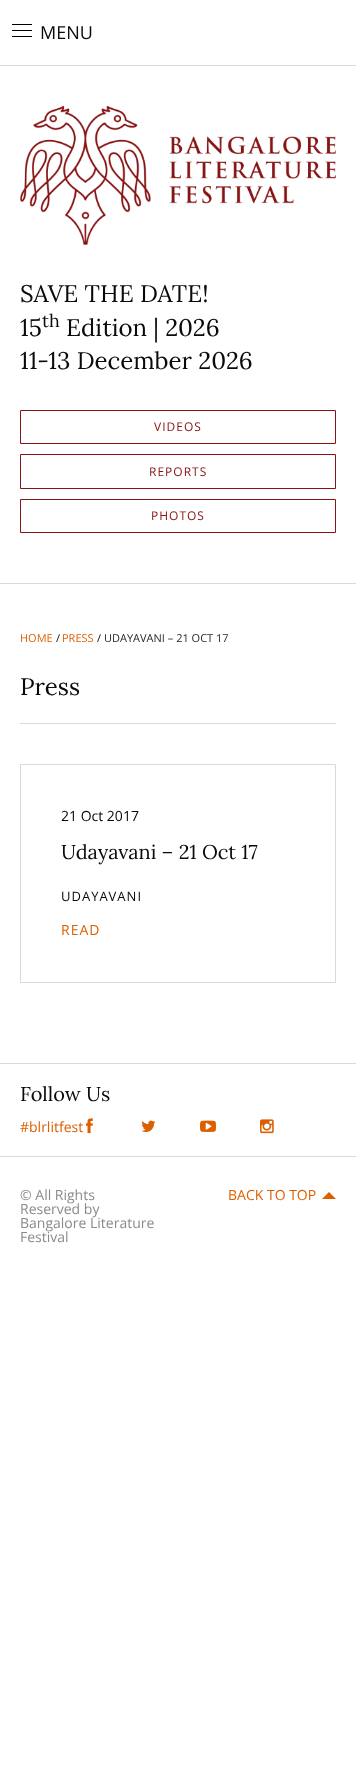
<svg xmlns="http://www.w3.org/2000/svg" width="356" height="1766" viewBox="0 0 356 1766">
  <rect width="100%" height="100%" fill="#fff"/>
  <path d="M0 583h356v1H0z" fill="#d9d9d9"/>
  <path d="M0 65h356v1H0z" fill="#d9d9d9"/>
  <path d="M12 36h20v1H12z" fill="#000"/>
  <path d="M12 30h20v1H12z" fill="#000"/>
  <path d="M12 24h20v1H12z" fill="#000"/>
  <image x="20" y="106" width="316" height="139" href="img/1.png"/>
  <path d="M20.5 410.5h315v33H20.5z" fill="none" stroke="#871414"/>
  <path d="M20.5 454.5h315v34H20.5z" fill="none" stroke="#871414"/>
  <path d="M20.5 499.5h315v33H20.5z" fill="none" stroke="#871414"/>
  <path d="M20 723h316v1H20z" fill="#d9d9d9"/>
  <path d="M20.5 764.5h315v218H20.5z" fill="none" stroke="#d9d9d9"/>
  <path d="M0 1063h356v1H0z" fill="#d9d9d9"/>
  <image x="86" y="1118" width="7" height="16" href="img/2.png"/>
  <image x="141" y="1120" width="15" height="12" href="img/3.png"/>
  <image x="200" y="1120" width="16" height="12" href="img/4.png"/>
  <image x="260" y="1119" width="14" height="15" href="img/5.png"/>
  <path d="M0 1156h356v1H0z" fill="#d9d9d9"/>
  <path d="M336 1199H322L329 1192Z" fill="#dc5f00"/>
  <text x="40" y="39" font-family="Open Sans" font-size="18" fill="#0a0a0a">MENU</text>
  <g font-family="Lora" font-size="24" fill="#0a0a0a">
    <text x="20" y="302">SAVE THE DATE!</text>
    <text x="20" y="336">15</text>
  </g>
  <text x="42" y="327" font-family="Lora" font-size="18" fill="#0a0a0a">th</text>
  <g font-family="Lora" font-size="24" fill="#0a0a0a">
    <text x="66" y="336">Edition | 2026</text>
    <text x="20" y="369">11-13 December 2026</text>
  </g>
  <g font-family="Open Sans" font-size="12" letter-spacing="1" fill="#871414">
    <text x="154" y="431">VIDEOS</text>
    <text x="149" y="476">REPORTS</text>
    <text x="151" y="520">PHOTOS</text>
  </g>
  <text x="20" y="642" font-family="Open Sans" font-size="11" fill="#dc5f00">HOME</text>
  <text x="56" y="642" font-family="Open Sans" font-size="11" fill="#0a0a0a">/</text>
  <text x="62" y="642" font-family="Open Sans" font-size="11" fill="#dc5f00">PRESS</text>
  <text x="97" y="642" font-family="Open Sans" font-size="11" fill="#0a0a0a">/</text>
  <text x="104" y="642" font-family="Open Sans" font-size="11" fill="#282828">UDAYAVANI – 21 OCT 17</text>
  <text x="20" y="695" font-family="Lora" font-size="24" fill="#0a0a0a">Press</text>
  <text x="61" y="821" font-family="Open Sans" font-size="14" fill="#0a0a0a">21 Oct 2017</text>
  <text x="61" y="859" font-family="Lora" font-size="20" fill="#0a0a0a">Udayavani – 21 Oct 17</text>
  <text x="61" y="901" font-family="Open Sans" font-size="13" letter-spacing="1" fill="#0a0a0a">UDAYAVANI</text>
  <text x="61" y="935" font-family="Open Sans" font-size="14" letter-spacing="1" fill="#dc5f00">READ</text>
  <text x="20" y="1101" font-family="Lora" font-size="20" fill="#0a0a0a">Follow Us</text>
  <text x="20" y="1132" font-family="Open Sans" font-size="14" fill="#dc5f00">#blrlitfest</text>
  <g font-family="Open Sans" font-size="14" fill="#8a8a8a">
    <text x="20" y="1200">© All Rights</text>
    <text x="20" y="1214">Reserved by</text>
    <text x="20" y="1228">Bangalore Literature</text>
    <text x="20" y="1242">Festival</text>
  </g>
  <text x="228" y="1200" font-family="Open Sans" font-size="14" fill="#dc5f00">BACK TO TOP</text>
</svg>
